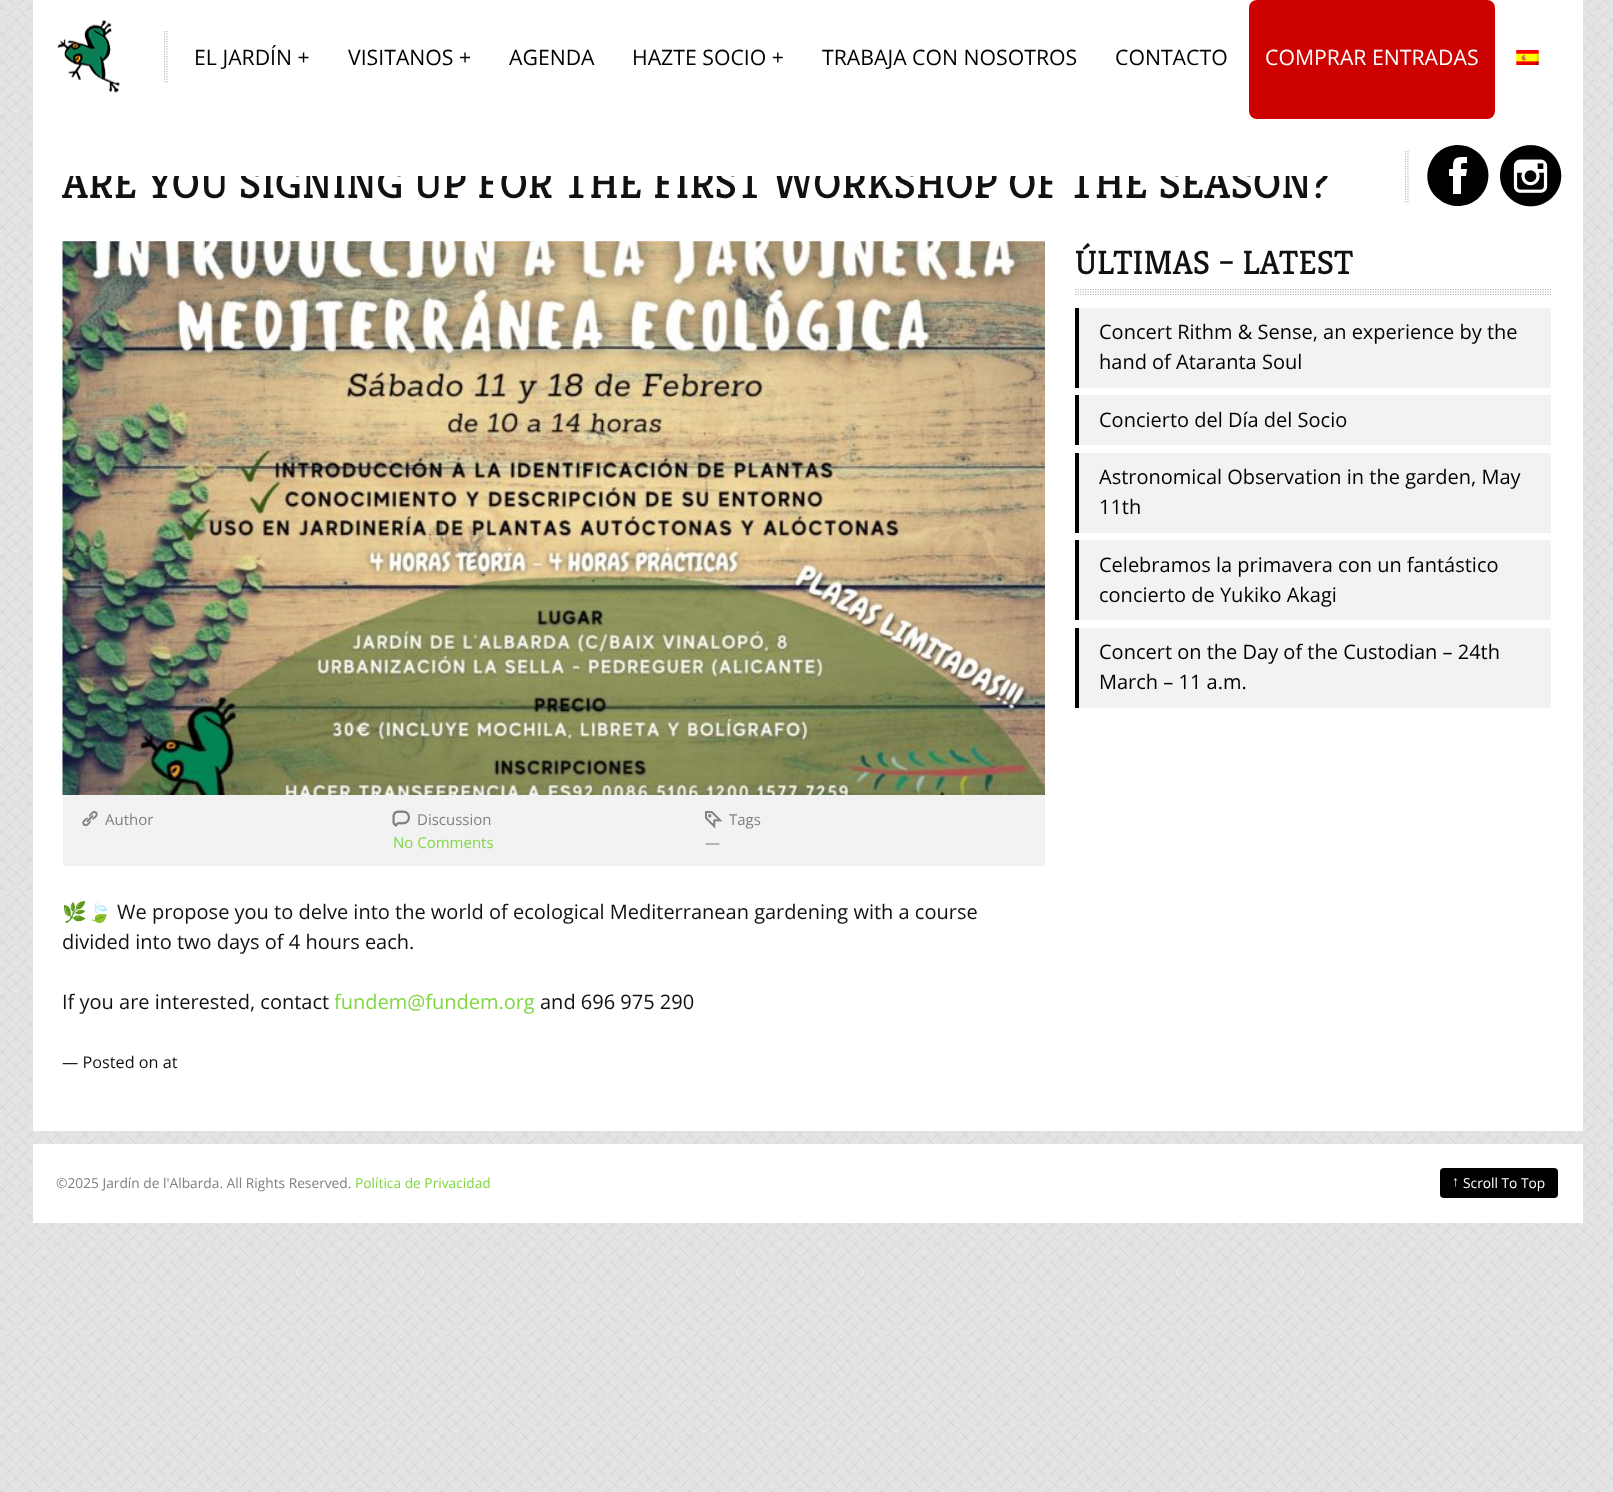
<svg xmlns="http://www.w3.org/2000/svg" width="1613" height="1492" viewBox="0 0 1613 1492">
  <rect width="100%" height="100%" fill="#fff"/>
  <image x="0" y="0" width="1613" height="1492" href="img/1.png"/>
  <path d="M33 176h1550v955H33z" fill="#fff"/>
  <path d="M1075 289.5H1551" fill="none" stroke="#b3b3b3" stroke-width="1.2" stroke-dasharray="1.25 1.25"/>
  <path d="M1075 292H1551" fill="none" stroke="#b3b3b3" stroke-width="1.2" stroke-dasharray="1.25 1.25"/>
  <path d="M1075 294.5H1551" fill="none" stroke="#b3b3b3" stroke-width="1.2" stroke-dasharray="1.25 1.25"/>
  <path d="M1079 308h472v80H1079z" fill="#f2f2f2"/>
  <path d="M1075 308h4v80H1075z" fill="#000"/>
  <path d="M1079 395h472v50H1079z" fill="#f2f2f2"/>
  <path d="M1075 395h4v50H1075z" fill="#000"/>
  <path d="M1079 453h472v80H1079z" fill="#f2f2f2"/>
  <path d="M1075 453h4v80H1075z" fill="#000"/>
  <path d="M1079 540h472v80H1079z" fill="#f2f2f2"/>
  <path d="M1075 540h4v80H1075z" fill="#000"/>
  <path d="M1079 628h472v80H1079z" fill="#f2f2f2"/>
  <path d="M1075 628h4v80H1075z" fill="#000"/>
  <image x="62" y="241" width="983" height="554" href="img/5.png"/>
  <path d="M63 795h982v71H63z" fill="#f2f2f2"/>
  <image x="82" y="811" width="16" height="16" href="img/6.png"/>
  <image x="392" y="810" width="18" height="17" href="img/7.png"/>
  <image x="705" y="811" width="18" height="18" href="img/8.png"/>
  <path d="M33 1144h1550v79H33z" fill="#fff"/>
  <rect x="1440" y="1168" width="118" height="30" rx="4" fill="#000"/>
  <text x="62" y="198" font-family="Kreon" font-size="43.75" font-weight="300" fill="#111">ARE YOU SIGNING UP FOR THE FIRST WORKSHOP OF THE SEASON?</text>
  <path d="M33 0h1550v176H33z" fill="#fff"/>
  <path d="M1408 151V202.5M1405.5 151V202.5" fill="none" stroke="#bfbfbf" stroke-width="1.2" stroke-dasharray="1.25 1.25"/>
  <image x="1500" y="145" width="62" height="62" href="img/4.png"/>
  <path d="M1458 145C1429 145 1416 183 1440 200C1445 204 1452 206 1458 206C1487 206 1500 169 1476 151C1471 147 1465 145 1458 145ZM1466 176H1461V194H1453V176H1449V169H1453C1453 157 1455 157 1467 157V163C1461 163 1461 162 1461 169H1467Z" fill="#000"/>
  <path d="M164.5 31V82.5" fill="none" stroke="#bfbfbf" stroke-width="1.2" stroke-dasharray="1.25 1.25"/>
  <image x="1516" y="50" width="23" height="15" href="img/3.png"/>
  <rect x="1249" width="246" height="119" rx="8" fill="#ce0101"/>
  <text x="1265" y="65" font-family="Open Sans" font-size="21.25" fill="#fff">COMPRAR ENTRADAS</text>
  <g font-family="Open Sans" font-size="21.25" fill="#000">
    <text x="1115" y="65">CONTACTO</text>
    <text x="822" y="65">TRABAJA CON NOSOTROS</text>
    <text x="632" y="65">HAZTE SOCIO +</text>
    <text x="509" y="65">AGENDA</text>
    <text x="348" y="65">VISITANOS +</text>
    <text x="194" y="65">EL JARDÍN +</text>
  </g>
  <path d="M167 31V82.5" fill="none" stroke="#bfbfbf" stroke-width="1.2" stroke-dasharray="1.25 1.25"/>
  <image x="57" y="19" width="64" height="74" href="img/2.png"/>
  <text x="1075" y="274" font-family="Kreon" font-size="33.75" font-weight="300" fill="#111">ÚLTIMAS – LATEST</text>
  <g font-family="Open Sans" font-size="20" fill="#000">
    <text x="1099" y="339">Concert Rithm &amp; Sense, an experience by the</text>
    <text x="1099" y="369">hand of Ataranta Soul</text>
    <text x="1099" y="427">Concierto del Día del Socio</text>
    <text x="1099" y="484">Astronomical Observation in the garden, May</text>
    <text x="1099" y="514">11th</text>
    <text x="1099" y="572">Celebramos la primavera con un fantástico</text>
    <text x="1099" y="602">concierto de Yukiko Akagi</text>
    <text x="1099" y="659">Concert on the Day of the Custodian – 24th</text>
    <text x="1099" y="689">March – 11 a.m.</text>
  </g>
  <g font-family="Open Sans" font-size="15" fill="#808080">
    <text x="105" y="825">Author</text>
    <text x="417" y="825">Discussion</text>
  </g>
  <text x="393" y="848" font-family="Open Sans" font-size="15" fill="#81d742">No Comments</text>
  <g font-family="Open Sans" font-size="15" fill="#808080">
    <text x="729" y="825">Tags</text>
    <text x="705" y="848">—</text>
  </g>
  <text x="62" y="919" font-family="Noto Color Emoji" font-size="20" fill="#111">🌿🍃</text>
  <g font-family="Open Sans" font-size="20" fill="#111">
    <text x="117" y="919">We propose you to delve into the world of ecological Mediterranean gardening with a course</text>
    <text x="62" y="949">divided into two days of 4 hours each.</text>
    <text x="62" y="1009">If you are interested, contact</text>
  </g>
  <text x="334" y="1009" font-family="Open Sans" font-size="20" fill="#81d742">fundem@fundem.org</text>
  <text x="540" y="1009" font-family="Open Sans" font-size="20" fill="#111">and 696 975 290</text>
  <text x="62" y="1068" font-family="Open Sans" font-size="16.25" fill="#111">— Posted on at</text>
  <text x="56" y="1188" font-family="Open Sans" font-size="13.75" fill="#808080">©2025 Jardín de l'Albarda. All Rights Reserved.</text>
  <text x="355" y="1188" font-family="Open Sans" font-size="13.75" fill="#81d742">Política de Privacidad</text>
  <text x="1452" y="1186" font-family="Liberation Sans" font-size="13.75" fill="#fff">↑</text>
  <text x="1463" y="1188" font-family="Open Sans" font-size="13.75" fill="#fff">Scroll To Top</text>
</svg>
